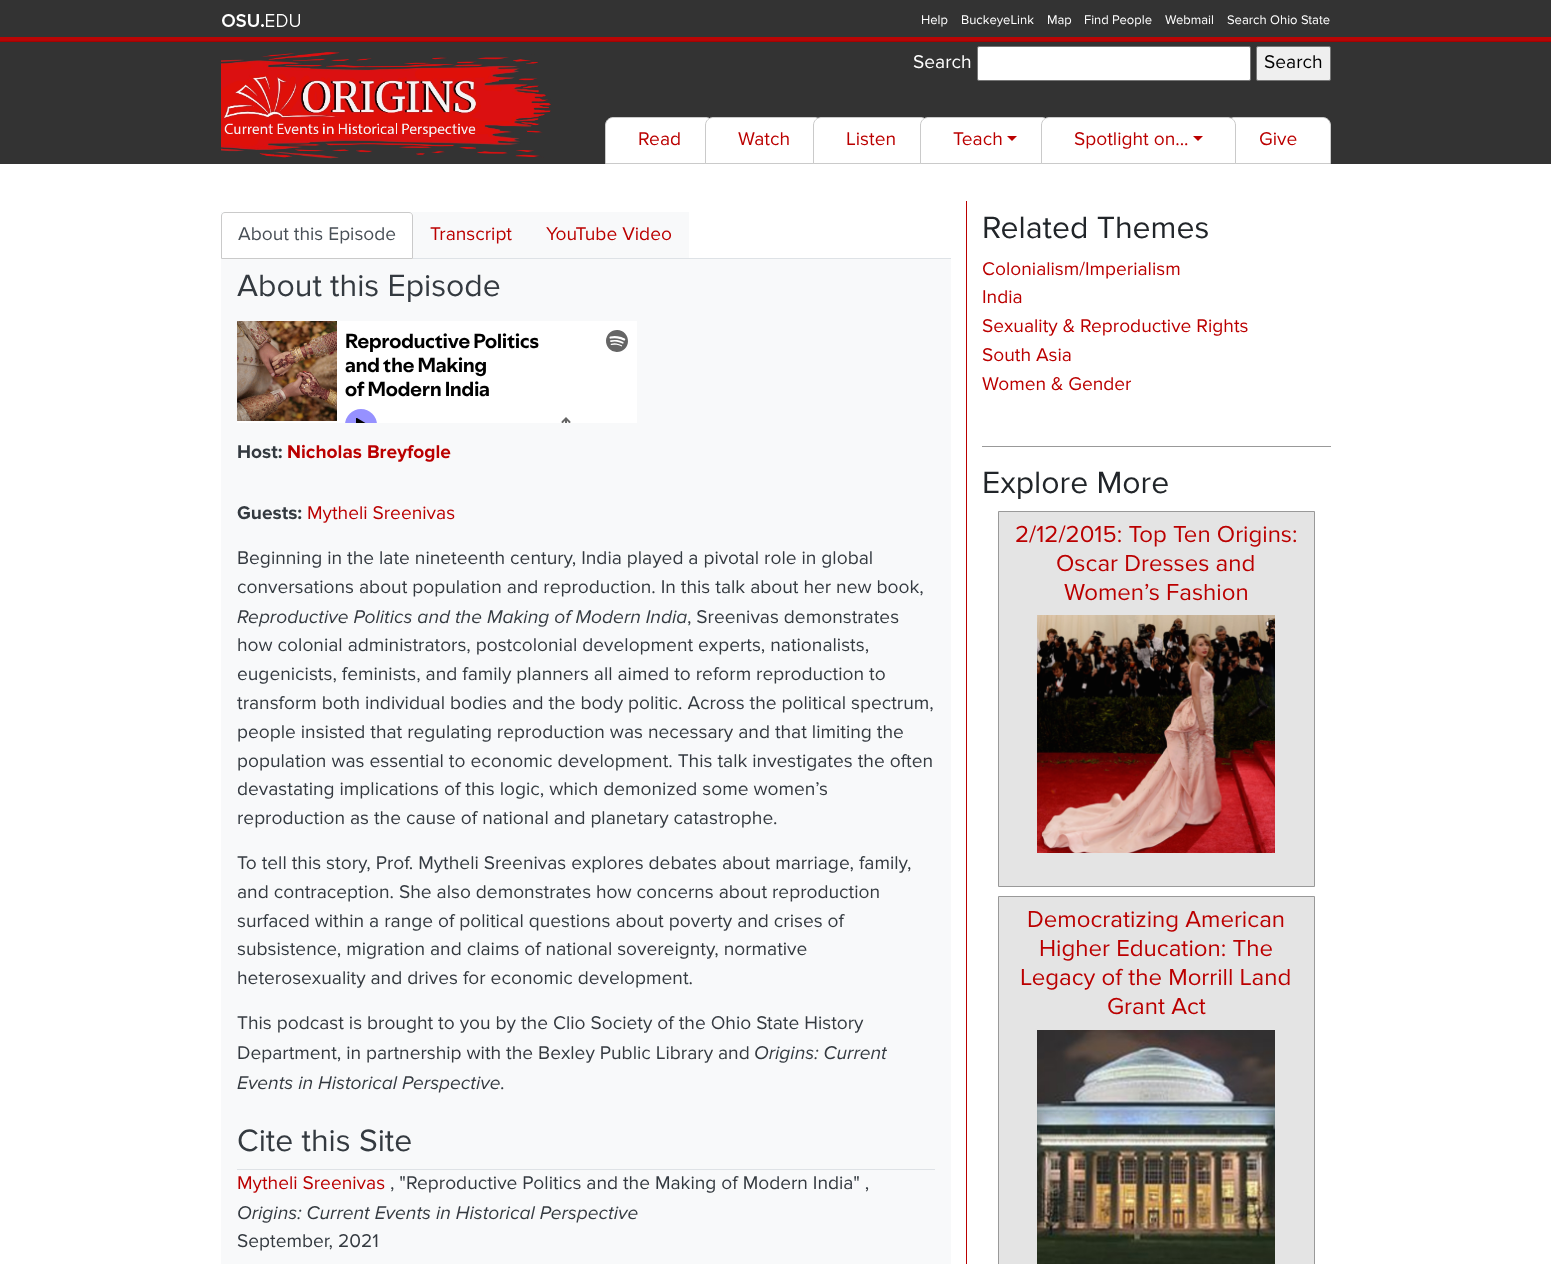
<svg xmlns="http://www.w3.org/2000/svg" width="1551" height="1264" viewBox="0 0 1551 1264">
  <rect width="100%" height="100%" fill="#fff"/>
  <path d="M0 0h1551v37H0z" fill="#333"/>
  <image x="0" y="37" width="1551" height="5" href="img/1.png"/>
  <image x="222" y="14" width="78" height="13" href="img/2.png"/>
  <path d="M0 42h1551v122H0z" fill="#333"/>
  <image x="221" y="52" width="331" height="107" href="img/3.png"/>
  <rect x="977.5" y="46.5" width="273" height="34" rx="1.5" fill="#fff" stroke="#767676"/>
  <rect x="1256.5" y="46.5" width="74" height="34" rx="1.5" fill="#efefef" stroke="#767676"/>
  <path d="M613 117.5H706C710 117.5 713.5 121 713.5 125V163.5H605.5V125C605.5 121 609 117.5 613 117.5Z" fill="#fff" stroke="#cacaca"/>
  <path d="M713 117.5H815C819 117.5 822.5 121 822.5 125V163.5H705.5V125C705.5 121 709 117.5 713 117.5Z" fill="#fff" stroke="#cacaca"/>
  <path d="M821 117.5H921C925 117.5 928.5 121 928.5 125V163.5H813.5V125C813.5 121 817 117.5 821 117.5Z" fill="#fff" stroke="#cacaca"/>
  <path d="M928 117.5H1042C1046 117.5 1049.5 121 1049.5 125V163.5H920.5V125C920.5 121 924 117.5 928 117.5Z" fill="#fff" stroke="#cacaca"/>
  <path d="M1007 136H1017L1012 141Z" fill="#b00"/>
  <path d="M1234 117.5H1323C1327 117.5 1330.5 121 1330.5 125V163.5H1226.5V125C1226.5 121 1230 117.5 1234 117.5Z" fill="#fff" stroke="#cacaca"/>
  <path d="M1049 117.5H1228C1232 117.5 1235.5 121 1235.5 125V163.5H1041.5V125C1041.5 121 1045 117.5 1049 117.5Z" fill="#fff" stroke="#cacaca"/>
  <path d="M1193 136H1203L1198 141Z" fill="#b00"/>
  <path d="M413 258h538v1H413z" fill="#dee2e6"/>
  <path d="M221 212h192v4H221z" fill="#f8f9fa"/>
  <path d="M225 212.5H409C411 212.5 412.5 214 412.5 216V258.5H221.5V216C221.5 214 223 212.5 225 212.5Z" fill="#fff" stroke="#cacaca"/>
  <path d="M413 212h276v46H413z" fill="#f8f9fa"/>
  <path d="M221 259h730v1005H221z" fill="#f8f9fa"/>
  <image x="237" y="321" width="400" height="102" href="img/4.png"/>
  <path d="M237 1169h698v1H237z" fill="#dee2e6"/>
  <path d="M966 201h1v1063H966z" fill="#b00"/>
  <path d="M982 446h349v1H982z" fill="#999"/>
  <path d="M998.5 511.5h316v375H998.5z" fill="#e4e4e4" stroke="#999"/>
  <image x="1037" y="615" width="238" height="238" href="img/5.png"/>
  <path d="M998.5 896.5h316v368H998.5z" fill="#e4e4e4" stroke="#999"/>
  <image x="1037" y="1030" width="238" height="234" href="img/6.png"/>
  <g font-family="Proxima Nova" font-size="13" fill="#fff">
    <text x="921" y="24">Help</text>
    <text x="961" y="24">BuckeyeLink</text>
    <text x="1047" y="24">Map</text>
    <text x="1084" y="24">Find People</text>
    <text x="1165" y="24">Webmail</text>
    <text x="1227" y="24">Search Ohio State</text>
  </g>
  <text x="913" y="68" font-family="Proxima Nova" font-size="19.2" fill="#fff">Search</text>
  <text x="1264" y="68" font-family="Proxima Nova" font-size="19.2" fill="#000">Search</text>
  <g font-family="Proxima Nova" font-size="19.2" fill="#b00">
    <text x="638" y="145">Read</text>
    <text x="738" y="145">Watch</text>
    <text x="846" y="145">Listen</text>
    <text x="953" y="145">Teach</text>
    <text x="1074" y="145">Spotlight on...</text>
    <text x="1259" y="145">Give</text>
  </g>
  <text x="238" y="240" font-family="Proxima Nova" font-size="19.2" fill="#495057">About this Episode</text>
  <g font-family="Proxima Nova" font-size="19.2" fill="#b00">
    <text x="430" y="240">Transcript</text>
    <text x="546" y="240">YouTube Video</text>
  </g>
  <text x="237" y="296" font-family="Proxima Nova" font-size="32" fill="#343a40">About this Episode</text>
  <text x="237" y="458" font-family="Proxima Nova" font-size="19.2" font-weight="bold" fill="#343a40">Host:</text>
  <text x="287" y="458" font-family="Proxima Nova" font-size="19.2" font-weight="bold" fill="#b00">Nicholas Breyfogle</text>
  <text x="237" y="519" font-family="Proxima Nova" font-size="19.2" font-weight="bold" fill="#343a40">Guests:</text>
  <text x="307" y="519" font-family="Proxima Nova" font-size="19.2" fill="#b00">Mytheli Sreenivas</text>
  <g font-family="Proxima Nova" font-size="19.2" fill="#343a40">
    <text x="237" y="564">Beginning in the late nineteenth century, India played a pivotal role in global</text>
    <text x="237" y="593">conversations about population and reproduction. In this talk about her new book,</text>
  </g>
  <text x="237" y="623" font-family="Proxima Nova" font-size="19.2" font-style="italic" fill="#343a40">Reproductive Politics and the Making of Modern India</text>
  <g font-family="Proxima Nova" font-size="19.2" fill="#343a40">
    <text x="687" y="623">, Sreenivas demonstrates</text>
    <text x="237" y="651">how colonial administrators, postcolonial development experts, nationalists,</text>
    <text x="237" y="680">eugenicists, feminists, and family planners all aimed to reform reproduction to</text>
    <text x="237" y="709">transform both individual bodies and the body politic. Across the political spectrum,</text>
    <text x="237" y="738">people insisted that regulating reproduction was necessary and that limiting the</text>
    <text x="237" y="767">population was essential to economic development. This talk investigates the often</text>
    <text x="237" y="795">devastating implications of this logic, which demonized some women’s</text>
    <text x="237" y="824">reproduction as the cause of national and planetary catastrophe.</text>
    <text x="237" y="869">To tell this story, Prof. Mytheli Sreenivas explores debates about marriage, family,</text>
    <text x="237" y="898">and contraception. She also demonstrates how concerns about reproduction</text>
    <text x="237" y="927">surfaced within a range of political questions about poverty and crises of</text>
    <text x="237" y="955">subsistence, migration and claims of national sovereignty, normative</text>
    <text x="237" y="984">heterosexuality and drives for economic development.</text>
    <text x="237" y="1029">This podcast is brought to you by the Clio Society of the Ohio State History</text>
    <text x="237" y="1059">Department, in partnership with the Bexley Public Library and</text>
  </g>
  <g font-family="Proxima Nova" font-size="19.2" font-style="italic" fill="#343a40">
    <text x="754" y="1059">Origins: Current</text>
    <text x="237" y="1089">Events in Historical Perspective</text>
  </g>
  <text x="500" y="1089" font-family="Proxima Nova" font-size="19.2" fill="#343a40">.</text>
  <text x="237" y="1151" font-family="Proxima Nova" font-size="32" fill="#343a40">Cite this Site</text>
  <text x="237" y="1189" font-family="Proxima Nova" font-size="19.2" fill="#b00">Mytheli Sreenivas</text>
  <text x="390" y="1189" font-family="Proxima Nova" font-size="19.2" fill="#343a40">, "Reproductive Politics and the Making of Modern India" ,</text>
  <text x="237" y="1219" font-family="Proxima Nova" font-size="19.2" font-style="italic" fill="#343a40">Origins: Current Events in Historical Perspective</text>
  <text x="237" y="1247" font-family="Proxima Nova" font-size="19.2" fill="#343a40">September, 2021</text>
  <text x="982" y="238" font-family="Proxima Nova" font-size="32" fill="#212529">Related Themes</text>
  <g font-family="Proxima Nova" font-size="19.2" fill="#b00">
    <text x="982" y="275">Colonialism/Imperialism</text>
    <text x="982" y="303">India</text>
    <text x="982" y="332">Sexuality &amp; Reproductive Rights</text>
    <text x="982" y="361">South Asia</text>
    <text x="982" y="390">Women &amp; Gender</text>
  </g>
  <text x="982" y="493" font-family="Proxima Nova" font-size="32" fill="#212529">Explore More</text>
  <g font-family="Proxima Nova" font-size="24" fill="#b00">
    <text x="1015" y="542">2/12/2015: Top Ten Origins:</text>
    <text x="1056" y="571">Oscar Dresses and</text>
    <text x="1064" y="600">Women’s Fashion</text>
    <text x="1027" y="927">Democratizing American</text>
    <text x="1039" y="956">Higher Education: The</text>
    <text x="1020" y="985">Legacy of the Morrill Land</text>
    <text x="1107" y="1014">Grant Act</text>
  </g>
</svg>
